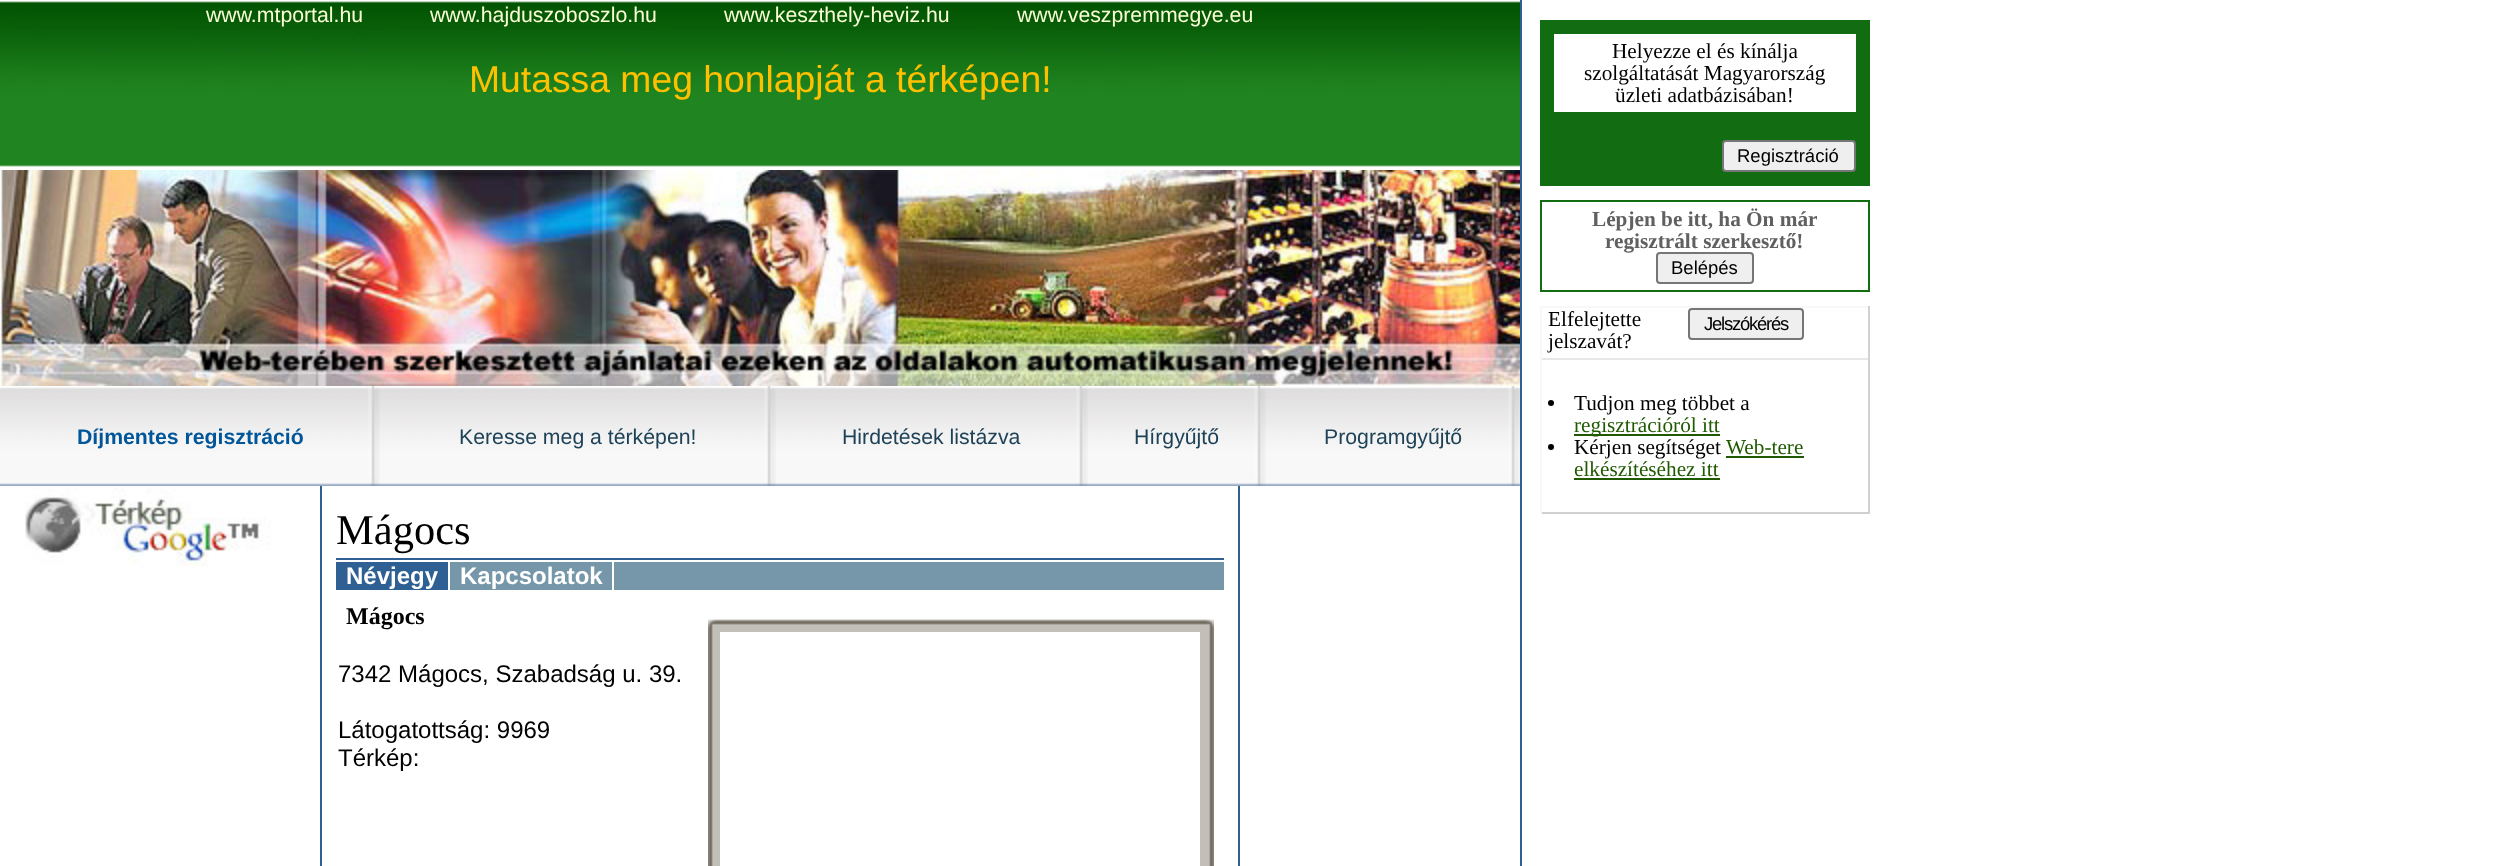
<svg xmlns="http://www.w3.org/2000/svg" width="2518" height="866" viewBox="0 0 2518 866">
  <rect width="100%" height="100%" fill="#fff"/>
  <path d="M1520 0h2v866H1520z" fill="#2e6093"/>
  <image x="0" y="1" width="1520" height="166" href="img/1.png"/>
  <path d="M1547 27h316v92H1547z" fill="none" stroke="#126c12" stroke-width="14"/>
  <path d="M1540 126h330v60H1540z" fill="#126c12"/>
  <rect x="1723" y="141" width="132" height="30" rx="3" fill="#efefef" stroke="#767676" stroke-width="2"/>
  <path d="M1541 201h328v90H1541z" fill="none" stroke="#126c12" stroke-width="2"/>
  <path d="M1540 306h330v2H1540z" fill="#f8f8f8"/>
  <path d="M1868 306h2v208H1868z" fill="#d1d1d1"/>
  <path d="M1540 512h330v2H1540z" fill="#d1d1d1"/>
  <path d="M1540 306h2v208H1540z" fill="#f8f8f8"/>
  <rect x="1689" y="309" width="114" height="30" rx="3" fill="#efefef" stroke="#767676" stroke-width="2"/>
  <path d="M1542 358h326v2H1542z" fill="#e7e7e7"/>
  <circle cx="1551" cy="403" r="3" fill="#000"/>
  <path d="M1574 434h146v2H1574z" fill="#205a00"/>
  <circle cx="1551" cy="447" r="3" fill="#000"/>
  <path d="M1726 456h78v2H1726z" fill="#205a00"/>
  <path d="M1574 478h146v2H1574z" fill="#205a00"/>
  <image x="0" y="170" width="1520" height="216" href="img/2.png"/>
  <image x="0" y="387" width="1508" height="99" href="img/3.png"/>
  <image x="368" y="386" width="12" height="100" href="img/4.png"/>
  <image x="764" y="386" width="12" height="100" href="img/4.png"/>
  <image x="1076" y="386" width="12" height="100" href="img/4.png"/>
  <image x="1254" y="386" width="12" height="100" href="img/4.png"/>
  <image x="1508" y="386" width="12" height="100" href="img/4.png"/>
  <path d="M320 486h2v380H320z" fill="#2e6093"/>
  <image x="25" y="488" width="246" height="79" href="img/5.png"/>
  <path d="M336 558h888v2H336z" fill="#2e6093"/>
  <path d="M450 562h774v28H450z" fill="#7597a9"/>
  <path d="M336 562h112v28H336z" fill="#2e6093"/>
  <path d="M612 562h2v28H612z" fill="#fff"/>
  <image x="708" y="619" width="12" height="13" href="img/6.png"/>
  <image x="720" y="619" width="480" height="13" href="img/7.png"/>
  <image x="1200" y="619" width="14" height="13" href="img/8.png"/>
  <image x="708" y="632" width="12" height="234" href="img/9.png"/>
  <image x="1200" y="632" width="14" height="234" href="img/10.png"/>
  <path d="M1238 486h2v380H1238z" fill="#2e6093"/>
  <g font-family="Liberation Sans" font-size="21.25" fill="#fbffd7">
    <text x="206" y="22">www.mtportal.hu</text>
    <text x="430" y="22">www.hajduszoboszlo.hu</text>
    <text x="724" y="22">www.keszthely-heviz.hu</text>
    <text x="1017" y="22">www.veszpremmegye.eu</text>
  </g>
  <text x="469" y="92" font-family="Liberation Sans" font-size="37.3" fill="#ffc000">Mutassa meg honlapját a térképen!</text>
  <g font-family="Liberation Serif" font-size="21.25" fill="#000">
    <text x="1612" y="58">Helyezze el és kínálja</text>
    <text x="1584" y="80">szolgáltatását Magyarország</text>
    <text x="1615" y="102">üzleti adatbázisában!</text>
  </g>
  <text x="1737" y="162" font-family="Liberation Sans" font-size="18.5" fill="#000">Regisztráció</text>
  <g font-family="Liberation Serif" font-size="21.25" font-weight="bold" fill="#606060">
    <text x="1592" y="226">Lépjen be itt, ha Ön már</text>
    <text x="1605" y="248">regisztrált szerkesztő!</text>
  </g>
  <rect x="1657" y="253" width="96" height="30" rx="3" fill="#efefef" stroke="#767676" stroke-width="2"/>
  <text x="1671" y="274" font-family="Liberation Sans" font-size="18.5" fill="#000">Belépés</text>
  <g font-family="Liberation Serif" font-size="21.25" fill="#000">
    <text x="1548" y="326">Elfelejtette</text>
    <text x="1548" y="348">jelszavát?</text>
  </g>
  <text x="1704" y="330" font-family="Liberation Sans" font-size="18.5" letter-spacing="-1.25" fill="#000">Jelszókérés</text>
  <text x="1574" y="410" font-family="Liberation Serif" font-size="21.25" fill="#000">Tudjon meg többet a</text>
  <text x="1574" y="432" font-family="Liberation Serif" font-size="21.25" fill="#205a00">regisztrációról itt</text>
  <text x="1574" y="454" font-family="Liberation Serif" font-size="21.25" fill="#000">Kérjen segítséget</text>
  <g font-family="Liberation Serif" font-size="21.25" fill="#205a00">
    <text x="1726" y="454">Web-tere</text>
    <text x="1574" y="476">elkészítéséhez itt</text>
  </g>
  <text x="77" y="444" font-family="Liberation Sans" font-size="21.25" font-weight="bold" fill="#005699">Díjmentes regisztráció</text>
  <g font-family="Liberation Sans" font-size="21.25" fill="#1e4257">
    <text x="459" y="444">Keresse meg a térképen!</text>
    <text x="842" y="444">Hirdetések listázva</text>
    <text x="1134" y="444">Hírgyűjtő</text>
    <text x="1324" y="444">Programgyűjtő</text>
  </g>
  <text x="336" y="544" font-family="Liberation Serif" font-size="42.5" fill="#000">Mágocs</text>
  <g font-family="Liberation Sans" font-size="24" font-weight="bold" fill="#fff">
    <text x="346" y="584">Névjegy</text>
    <text x="460" y="584">Kapcsolatok</text>
  </g>
  <text x="346" y="624" font-family="Liberation Serif" font-size="24" font-weight="bold" fill="#000">Mágocs</text>
  <g font-family="Liberation Sans" font-size="24" fill="#000">
    <text x="338" y="682">7342 Mágocs, Szabadság u. 39.</text>
    <text x="338" y="738">Látogatottság: 9969</text>
    <text x="338" y="766">Térkép:</text>
  </g>
</svg>
